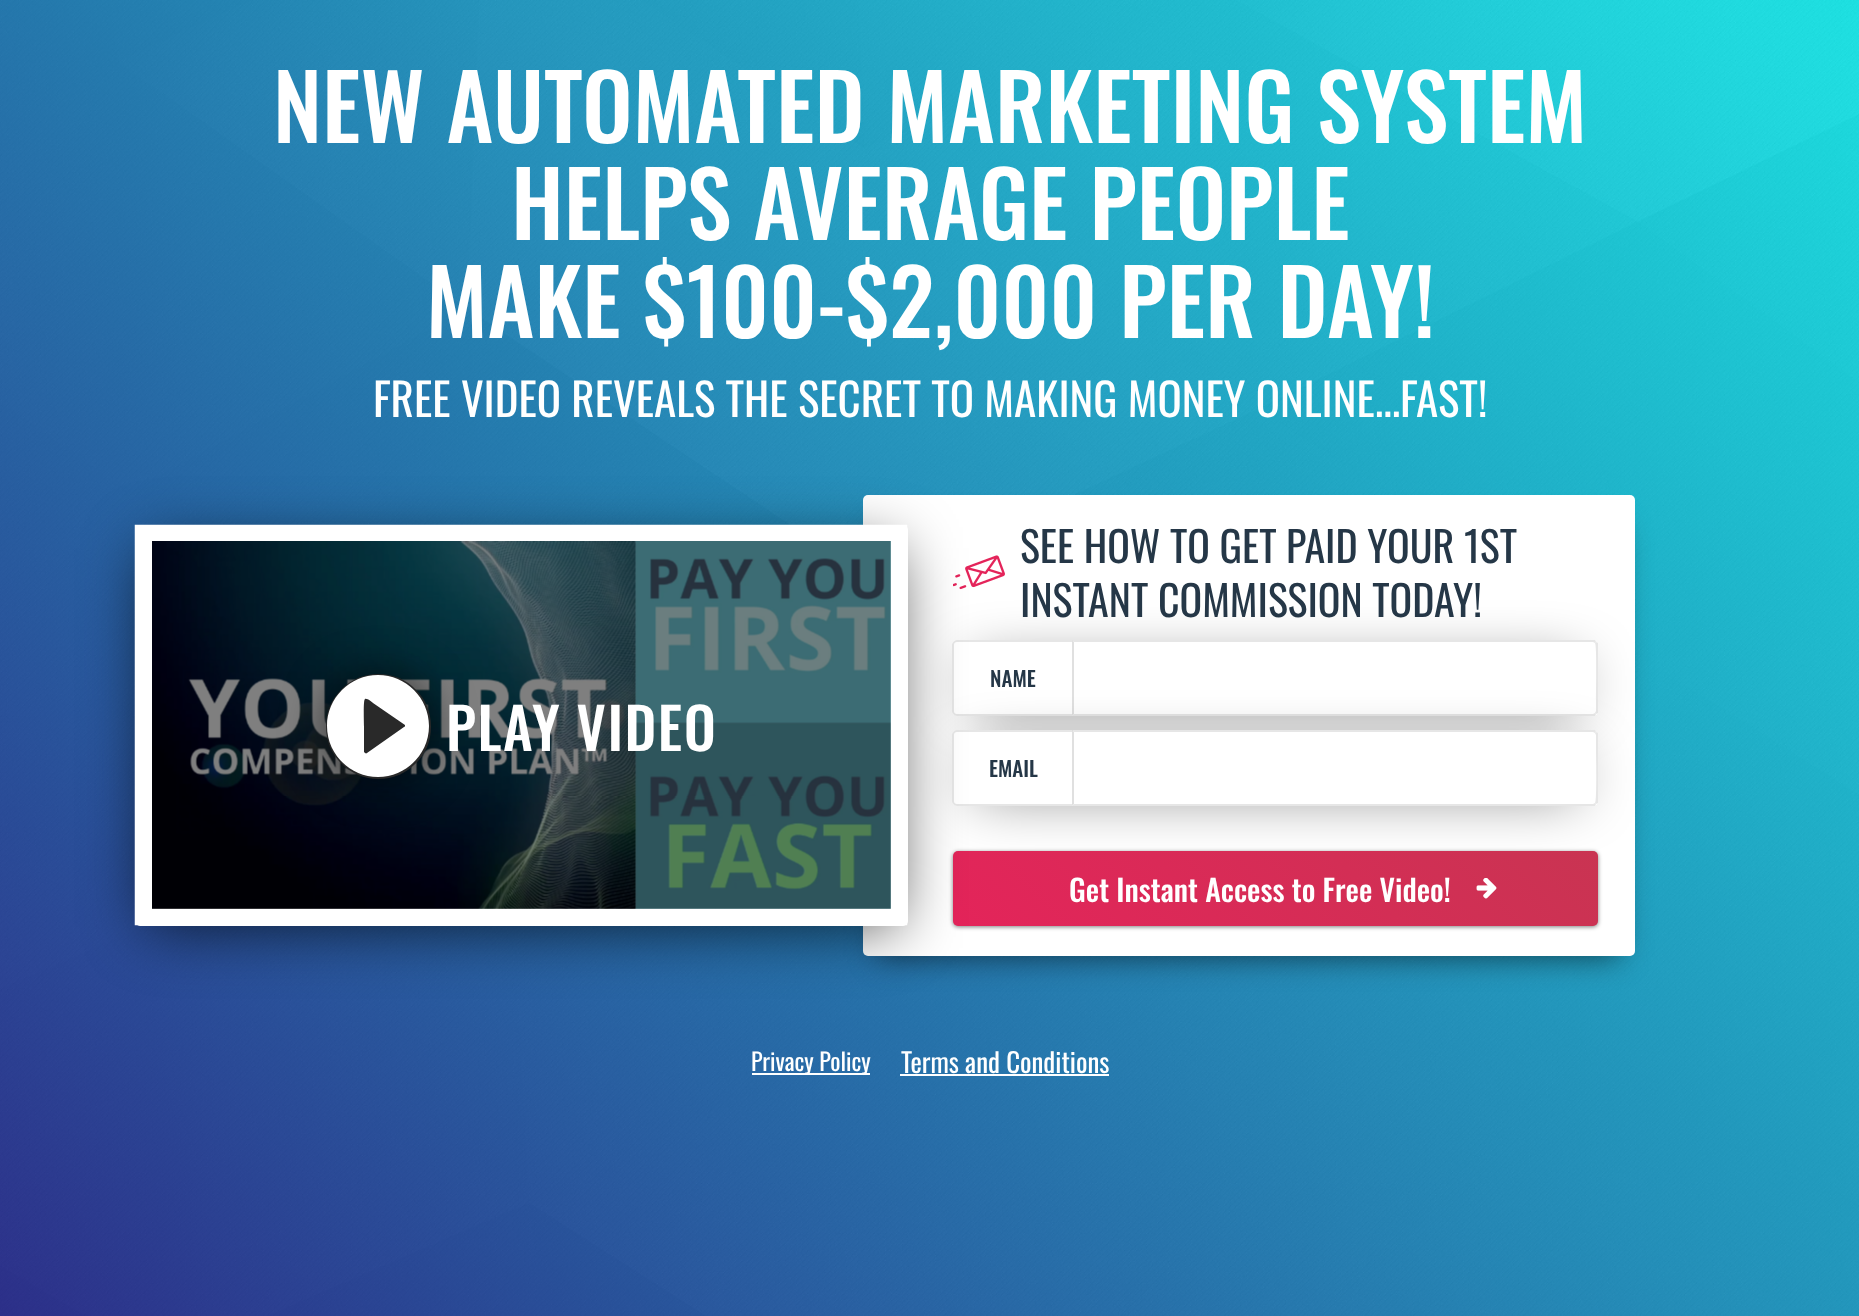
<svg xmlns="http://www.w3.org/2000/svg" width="1859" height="1316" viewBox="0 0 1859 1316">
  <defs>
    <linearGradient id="g1" gradientUnits="userSpaceOnUse" x1="1095" y1="1068" x2="1455" y2="708"><stop offset="0" stop-color="#e4245a"/><stop offset="1" stop-color="#c93452"/></linearGradient>
  </defs>
  <rect width="100%" height="100%" fill="#fff"/>
  <image x="0" y="0" width="1859" height="1316" href="img/1.png"/>
  <path d="M878 527h742v430H878z" fill="#00000091" filter="blur(15px)"/>
  <rect x="863" y="495" width="772" height="461" rx="5" fill="#fff"/>
  <image x="953" y="555" width="52" height="35" href="img/4.png"/>
  <path d="M974 668h603v33H974z" fill="#000000a1" filter="blur(29px)"/>
  <path d="M958 641H1073V716H958C955 716 953 714 953 711V646C953 643 955 641 958 641Z" fill="#fff"/>
  <path d="M957 640H1072V716H957C955 716 952 713 952 711V645C952 643 955 640 957 640ZM957 642H1072V714H957C955 714 954 713 954 711V645C954 643 955 642 957 642Z" fill="#e6e6e6" fill-rule="evenodd"/>
  <path d="M1073 641H1593C1596 641 1598 643 1598 646V711C1598 714 1596 716 1593 716H1073Z" fill="#fff"/>
  <path d="M1074 642L1072 640H1595L1596 642L1595 643L1593 642Z" fill="#e6e6e6"/>
  <path d="M1598 713L1596 714L1595 713L1596 711V700C1596 694 1597 645 1595 643L1596 642L1598 643Z" fill="#e6e6e6"/>
  <path d="M1596 714L1595 716H1072L1074 714H1593L1595 713Z" fill="#e6e6e6"/>
  <path d="M1072 716L1074 714V642L1072 640Z" fill="#e0e0e0"/>
  <path d="M974 758h603v33H974z" fill="#000000a1" filter="blur(29px)"/>
  <path d="M958 731H1073V806H958C955 806 953 804 953 801V736C953 733 955 731 958 731Z" fill="#fff"/>
  <path d="M957 730H1072V806H957C955 806 952 803 952 801V735C952 733 955 730 957 730ZM957 732H1072V804H957C955 804 954 803 954 801V735C954 733 955 732 957 732Z" fill="#e6e6e6" fill-rule="evenodd"/>
  <rect x="953" y="852" width="645" height="75" rx="5" fill="#00000080" filter="blur(2px)"/>
  <rect x="953" y="851" width="645" height="75" rx="5" fill="url(#g1)"/>
  <path d="M146 548h751v379H146z" fill="#000000b0" filter="blur(31px)"/>
  <rect x="135" y="525" width="773" height="401" rx="5" fill="#fff"/>
  <path d="M143 533H899V917H143Z" fill="none" stroke="#fff" stroke-width="16.5"/>
  <image x="157" y="908" width="730" height="1" href="img/3.png"/>
  <image x="152" y="541" width="739" height="368" href="img/2.png"/>
  <rect x="326" y="675" width="105" height="105" rx="52.5" fill="#000000a1" filter="blur(22.5px)"/>
  <circle cx="378.5" cy="726.5" r="51.5" fill="#292929" stroke="#292929" stroke-width="2"/>
  <path d="M378 675C350 675 327 698 327 726C327 754 350 777 378 777C406 777 429 754 429 726C429 698 406 675 378 675ZM404 727L367 753C366 754 365 753 364 752V726C364 723 363 700 365 699C367 698 372 702 373 703L405 725C405 726 405 727 404 727Z" fill="#fff"/>
  <path d="M1073 731H1593C1596 731 1598 733 1598 736V801C1598 804 1596 806 1593 806H1073Z" fill="#fff"/>
  <path d="M1074 732L1072 730H1595L1596 732L1595 733L1593 732Z" fill="#e6e6e6"/>
  <path d="M1598 803L1596 804L1595 803C1597 801 1596 752 1596 746V735L1595 733L1596 732L1598 733Z" fill="#e6e6e6"/>
  <path d="M1596 804L1595 806H1072L1074 804H1593L1595 803Z" fill="#e6e6e6"/>
  <path d="M1072 806L1074 804V732L1072 730Z" fill="#e0e0e0"/>
  <image x="1476" y="878" width="21" height="21" href="img/5.png"/>
  <path d="M752 1073h118v2H752z" fill="#fff"/>
  <path d="M900 1074h209v2H900z" fill="#fff"/>
  <g font-family="Oswald" font-size="90" font-weight="500" fill="#fff">
    <text x="273" y="143">NEW AUTOMATED MARKETING SYSTEM</text>
    <text x="511" y="240">HELPS AVERAGE PEOPLE</text>
    <text x="426" y="338">MAKE $100-$2,000 PER DAY!</text>
  </g>
  <text x="373" y="417" font-family="Oswald" font-size="45" fill="#fff">FREE VIDEO REVEALS THE SECRET TO MAKING MONEY ONLINE...FAST!</text>
  <text x="446" y="751" font-family="Oswald" font-size="57" font-weight="500" letter-spacing="1.5" fill="#fff">PLAY VIDEO</text>
  <g font-family="Oswald" font-size="42" fill="#253747">
    <text x="1020" y="563">SEE HOW TO GET PAID YOUR 1ST</text>
    <text x="1020" y="617">INSTANT COMMISSION TODAY!</text>
  </g>
  <g font-family="Oswald" font-size="21" font-weight="500" fill="#253747">
    <text x="990" y="687">NAME</text>
    <text x="989" y="777">EMAIL</text>
  </g>
  <text x="1069" y="902" font-family="Oswald" font-size="30" font-weight="500" fill="#fff">Get Instant Access to Free Video!</text>
  <text x="751" y="1071" font-family="Oswald" font-size="24" fill="#fff">Privacy Policy</text>
  <text x="901" y="1073" font-family="Oswald" font-size="27" fill="#fff">Terms and Conditions</text>
</svg>
